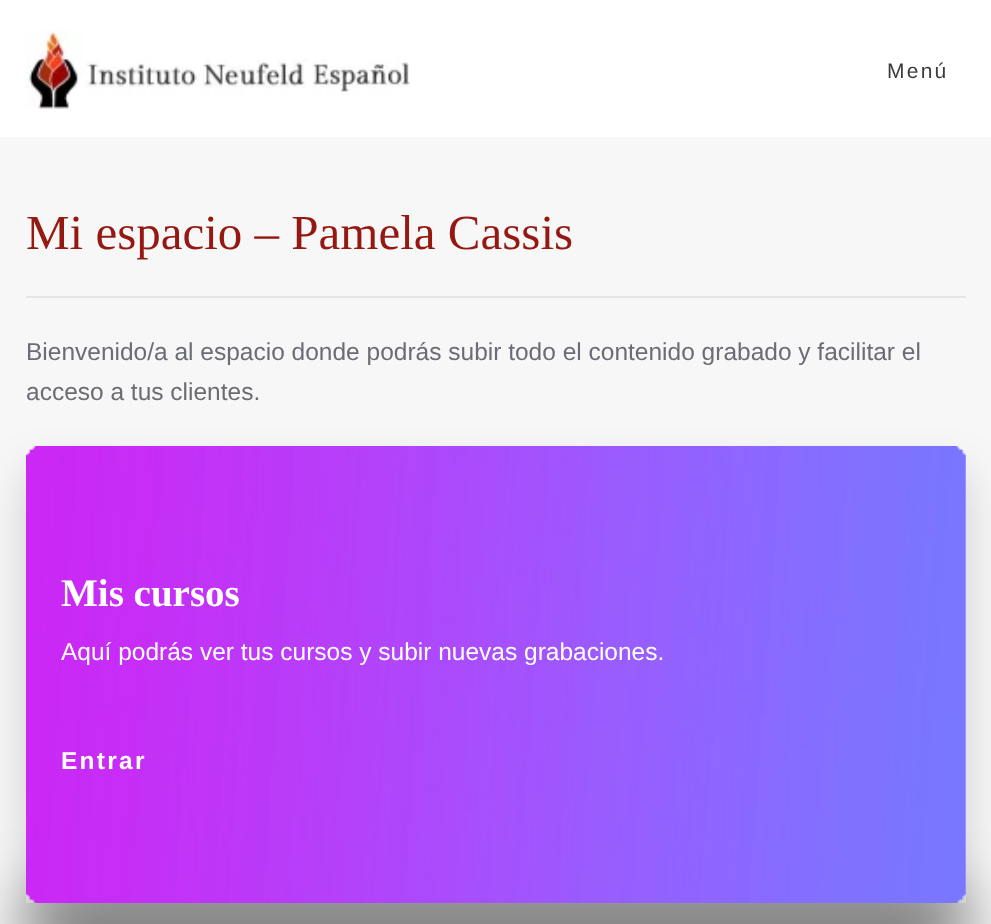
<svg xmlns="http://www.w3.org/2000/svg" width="991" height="924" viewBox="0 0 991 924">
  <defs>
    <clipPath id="clip1"><path d="M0 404H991V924H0ZM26 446H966V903H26Z" clip-rule="evenodd"/></clipPath>
  </defs>
  <rect width="100%" height="100%" fill="#fff"/>
  <image x="26" y="30" width="385" height="79" href="img/1.png"/>
  <path d="M0 137h991v787H0z" fill="#f7f7f7"/>
  <path d="M26 296h940v2H26z" fill="#e5e5e7"/>
  <g clip-path="url(#clip1)">
    <path d="M26 471h940v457H26z" fill="#00000029" filter="blur(22px)"/>
  </g>
  <rect x="26" y="903" width="940" height="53" rx="26.5" fill="#444" filter="blur(35px)"/>
  <image x="26" y="446" width="940" height="457" href="img/2.png"/>
  <text x="887" y="78" font-family="Liberation Sans" font-size="21" letter-spacing="2.25" fill="#3c3c3c">Menú</text>
  <text x="26" y="249" font-family="Liberation Serif" font-size="49" fill="#941912">Mi espacio – Pamela Cassis</text>
  <g font-family="Liberation Sans" font-size="24.5" fill="#6c6d74">
    <text x="26" y="360">Bienvenido/a al espacio donde podrás subir todo el contenido grabado y facilitar el</text>
    <text x="26" y="400">acceso a tus clientes.</text>
  </g>
  <text x="61" y="606" font-family="Liberation Serif" font-size="39" font-weight="bold" fill="#fff">Mis cursos</text>
  <text x="61" y="660" font-family="Liberation Sans" font-size="24.5" fill="#fff">Aquí podrás ver tus cursos y subir nuevas grabaciones.</text>
  <text x="61" y="769" font-family="Liberation Sans" font-size="24.5" font-weight="bold" letter-spacing="2.25" fill="#fff">Entrar</text>
</svg>
